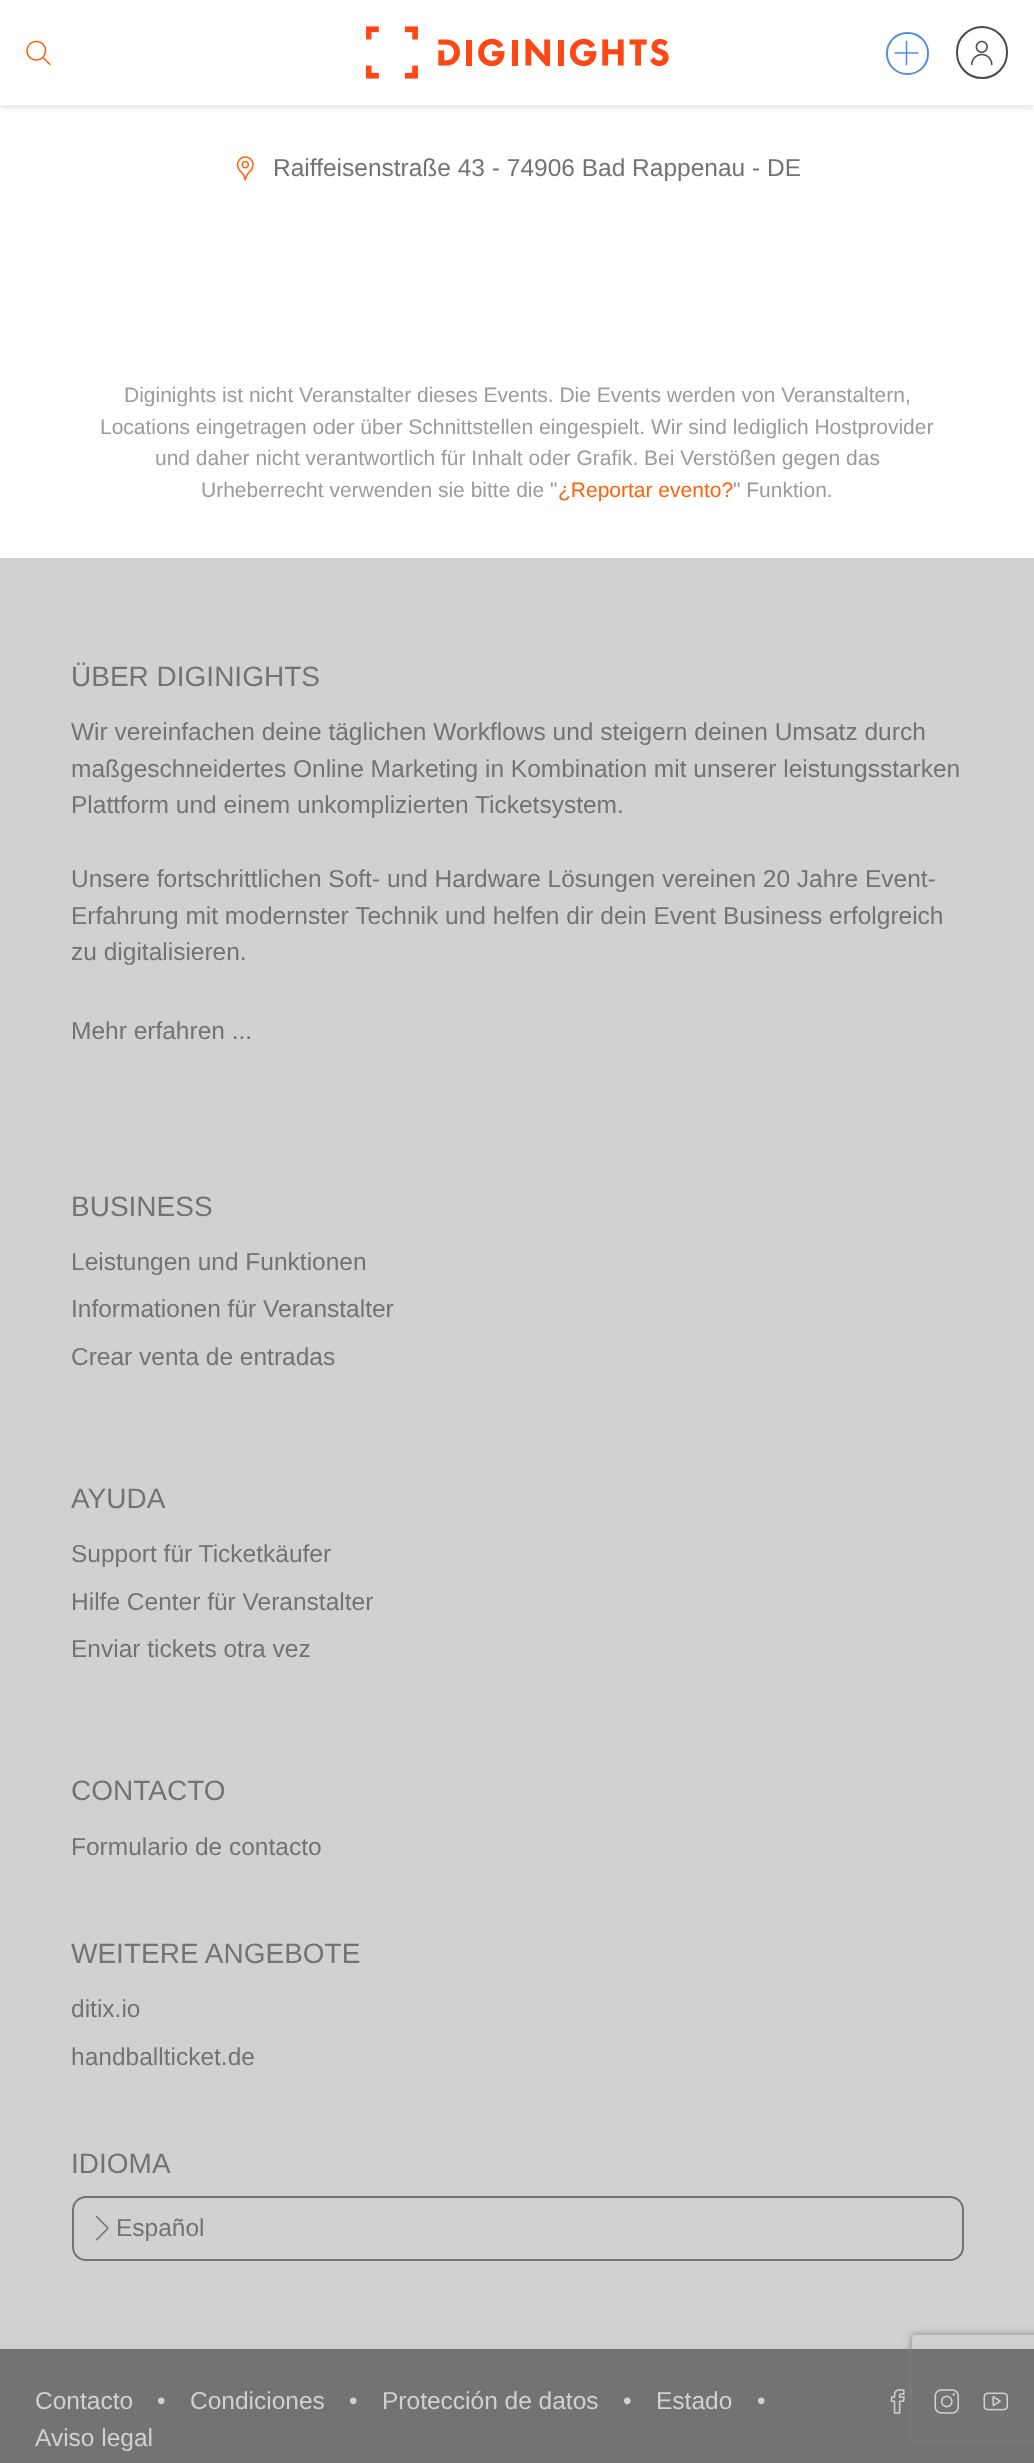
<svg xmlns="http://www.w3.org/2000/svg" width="1034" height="2463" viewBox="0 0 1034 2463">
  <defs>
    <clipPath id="clip1"><path d="M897 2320H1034V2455H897ZM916 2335H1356C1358 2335 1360 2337 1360 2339V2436C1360 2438 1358 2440 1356 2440H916C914 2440 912 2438 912 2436V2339C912 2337 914 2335 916 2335Z" clip-rule="evenodd"/></clipPath>
  </defs>
  <rect width="100%" height="100%" fill="#fff"/>
  <path d="M0 2h1034v105H0z" fill="#ddd" filter="blur(3.5px)"/>
  <path d="M0 0h1034v105H0z" fill="#fff"/>
  <image x="26" y="40" width="25" height="26" href="img/1.png"/>
  <image x="366" y="26" width="303" height="53" href="img/2.png"/>
  <rect x="887" y="33" width="41" height="41" rx="20" fill="none" stroke="#568ce1" stroke-width="2"/>
  <image x="894" y="40" width="25" height="26" href="img/3.png"/>
  <rect x="957" y="27" width="50" height="51" rx="25" fill="none" stroke="#4a4a4a" stroke-width="2"/>
  <image x="971" y="40" width="22" height="26" href="img/4.png"/>
  <image x="236" y="156" width="18" height="25" href="img/5.png"/>
  <path d="M0 558h1034v1791H0z" fill="#d1d1d1"/>
  <rect x="73" y="2197" width="890" height="63" rx="13" fill="none" stroke="#737373" stroke-width="2"/>
  <image x="95" y="2216" width="14" height="25" href="img/6.png"/>
  <path d="M0 2349h1034v114H0z" fill="#737373"/>
  <image x="890" y="2389" width="15" height="25" href="img/7.png"/>
  <image x="934" y="2389" width="25" height="25" href="img/8.png"/>
  <image x="983" y="2392" width="25" height="19" href="img/9.png"/>
  <g clip-path="url(#clip1)">
    <rect x="912" y="2335" width="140" height="105" rx="4" fill="#808080" filter="blur(4.5px)"/>
  </g>
  <text x="273" y="176" font-family="Liberation Sans" font-size="24.5" fill="#737373">Raiffeisenstraße 43 - 74906 Bad Rappenau - DE</text>
  <g font-family="Liberation Sans" font-size="21" fill="#9b9b9b">
    <text x="124" y="402">Diginights ist nicht Veranstalter dieses Events. Die Events werden von Veranstaltern,</text>
    <text x="100" y="434">Locations eingetragen oder über Schnittstellen eingespielt. Wir sind lediglich Hostprovider</text>
    <text x="155" y="465">und daher nicht verantwortlich für Inhalt oder Grafik. Bei Verstößen gegen das</text>
    <text x="201" y="497">Urheberrecht verwenden sie bitte die "</text>
  </g>
  <text x="558" y="497" font-family="Liberation Sans" font-size="21" fill="#ff610c">¿Reportar evento?</text>
  <text x="733" y="497" font-family="Liberation Sans" font-size="21" fill="#9b9b9b">" Funktion.</text>
  <text x="71" y="686" font-family="Liberation Sans" font-size="28" fill="#737373">ÜBER DIGINIGHTS</text>
  <g font-family="Liberation Sans" font-size="24.5" fill="#737373">
    <text x="71" y="740">Wir vereinfachen deine täglichen Workflows und steigern deinen Umsatz durch</text>
    <text x="71" y="777">maßgeschneidertes Online Marketing in Kombination mit unserer leistungsstarken</text>
    <text x="71" y="813">Plattform und einem unkomplizierten Ticketsystem.</text>
    <text x="71" y="887">Unsere fortschrittlichen Soft- und Hardware Lösungen vereinen 20 Jahre Event-</text>
    <text x="71" y="924">Erfahrung mit modernster Technik und helfen dir dein Event Business erfolgreich</text>
    <text x="71" y="960">zu digitalisieren.</text>
    <text x="71" y="1039">Mehr erfahren ...</text>
  </g>
  <text x="71" y="1216" font-family="Liberation Sans" font-size="28" fill="#737373">BUSINESS</text>
  <g font-family="Liberation Sans" font-size="24.5" fill="#737373">
    <text x="71" y="1270">Leistungen und Funktionen</text>
    <text x="71" y="1317">Informationen für Veranstalter</text>
    <text x="71" y="1365">Crear venta de entradas</text>
  </g>
  <text x="71" y="1508" font-family="Liberation Sans" font-size="28" fill="#737373">AYUDA</text>
  <g font-family="Liberation Sans" font-size="24.5" fill="#737373">
    <text x="71" y="1562">Support für Ticketkäufer</text>
    <text x="71" y="1610">Hilfe Center für Veranstalter</text>
    <text x="71" y="1657">Enviar tickets otra vez</text>
  </g>
  <text x="71" y="1800" font-family="Liberation Sans" font-size="28" fill="#737373">CONTACTO</text>
  <text x="71" y="1855" font-family="Liberation Sans" font-size="24.5" fill="#737373">Formulario de contacto</text>
  <text x="71" y="1963" font-family="Liberation Sans" font-size="28" fill="#737373">WEITERE ANGEBOTE</text>
  <g font-family="Liberation Sans" font-size="24.5" fill="#737373">
    <text x="71" y="2017">ditix.io</text>
    <text x="71" y="2065">handballticket.de</text>
  </g>
  <text x="71" y="2173" font-family="Liberation Sans" font-size="28" fill="#737373">IDIOMA</text>
  <text x="116" y="2236" font-family="Liberation Sans" font-size="24.5" fill="#737373">Español</text>
  <g font-family="Liberation Sans" font-size="24.5" fill="#d1d1d1">
    <text x="35" y="2409">Contacto</text>
    <text x="157" y="2409">•</text>
    <text x="190" y="2409">Condiciones</text>
    <text x="349" y="2409">•</text>
    <text x="382" y="2409">Protección de datos</text>
    <text x="623" y="2409">•</text>
    <text x="656" y="2409">Estado</text>
    <text x="757" y="2409">•</text>
    <text x="35" y="2446">Aviso legal</text>
  </g>
</svg>
